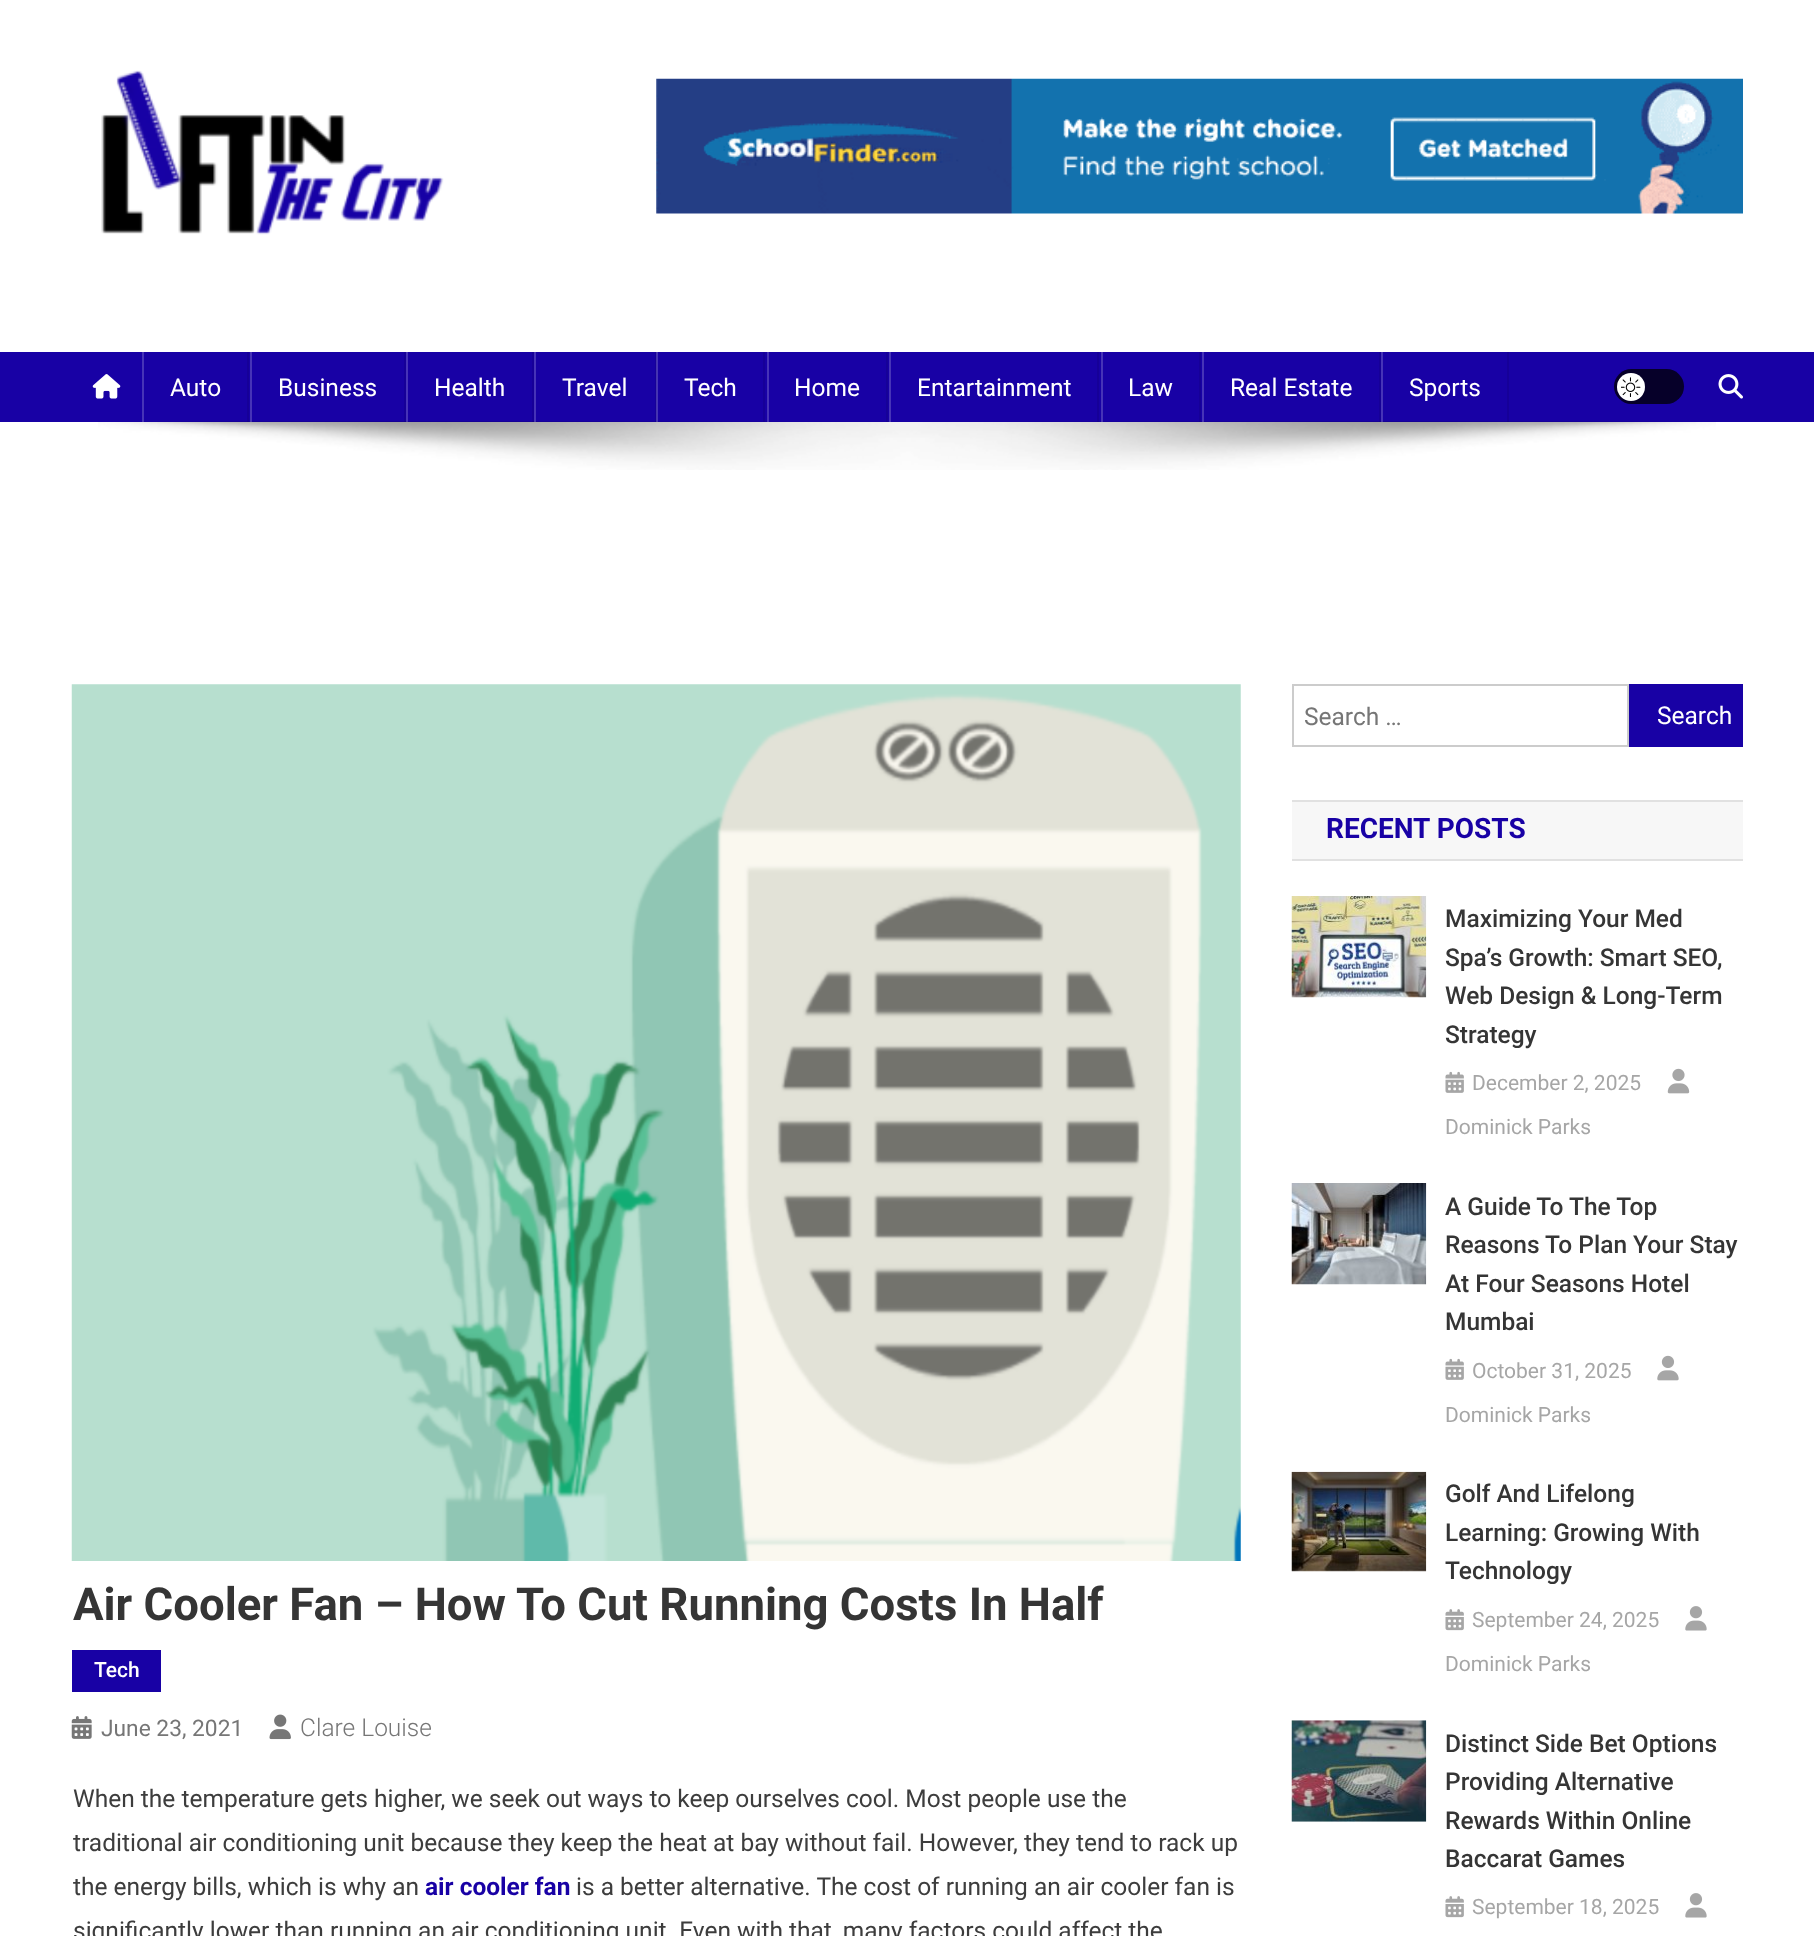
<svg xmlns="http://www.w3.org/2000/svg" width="1814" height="1936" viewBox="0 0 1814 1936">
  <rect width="100%" height="100%" fill="#fff"/>
  <image x="101" y="70" width="343" height="165" href="img/1.png"/>
  <image x="656" y="78" width="1087" height="136" href="img/2.png"/>
  <path d="M0 352h1814v70H0z" fill="#1801a5"/>
  <path d="M889 352h2v70H889z" fill="#4634b7"/>
  <path d="M886 352h2v70H886z" fill="#160198"/>
  <path d="M142 352h2v70H142z" fill="#4634b7"/>
  <image x="92" y="374" width="29" height="25" href="img/3.png"/>
  <image x="98" y="421" width="1618" height="49" href="img/6.png"/>
  <path d="M247 352h2v70H247z" fill="#00000014"/>
  <path d="M404 352h2v70H404z" fill="#00000014"/>
  <path d="M250 352h2v70H250z" fill="#ffffff33"/>
  <path d="M532 352h2v70H532z" fill="#00000014"/>
  <path d="M406 352h2v70H406z" fill="#ffffff33"/>
  <path d="M655 352h2v70H655z" fill="#00000014"/>
  <path d="M534 352h2v70H534z" fill="#ffffff33"/>
  <path d="M763 352h2v70H763z" fill="#00000014"/>
  <path d="M656 352h2v70H656z" fill="#ffffff33"/>
  <path d="M767 352h2v70H767z" fill="#ffffff33"/>
  <path d="M1097 352h2v70H1097z" fill="#00000014"/>
  <path d="M1199 352h2v70H1199z" fill="#00000014"/>
  <path d="M1101 352h2v70H1101z" fill="#ffffff33"/>
  <path d="M1379 352h2v70H1379z" fill="#00000014"/>
  <path d="M1202 352h2v70H1202z" fill="#ffffff33"/>
  <path d="M1507 352h2v70H1507z" fill="#00000014"/>
  <path d="M1381 352h2v70H1381z" fill="#ffffff33"/>
  <rect x="1614" y="369" width="70" height="35" rx="17.5" fill="#060029"/>
  <circle cx="1631" cy="387" r="14" fill="#fff"/>
  <image x="1621" y="377" width="20" height="20" href="img/4.png"/>
  <image x="1718" y="374" width="25" height="25" href="img/5.png"/>
  <image x="71" y="684" width="1170" height="877" href="img/7.png"/>
  <path d="M72 1650h89v42H72z" fill="#1801a5"/>
  <image x="71" y="1716" width="21" height="23" href="img/8.png"/>
  <image x="269" y="1714" width="22" height="26" href="img/9.png"/>
  <path d="M1293 685h335v61H1293z" fill="none" stroke="#ccc" stroke-width="2"/>
  <path d="M1629 684h114v63H1629z" fill="#1801a5"/>
  <path d="M1292 802h451v57H1292z" fill="#f7f7f7"/>
  <path d="M1292 800h451v2H1292z" fill="#e1e1e1"/>
  <path d="M1292 859h451v2H1292z" fill="#e1e1e1"/>
  <image x="1291" y="896" width="136" height="102" href="img/10.png"/>
  <image x="1445" y="1071" width="19" height="22" href="img/11.png"/>
  <image x="1667" y="1068" width="23" height="26" href="img/12.png"/>
  <image x="1291" y="1183" width="136" height="102" href="img/13.png"/>
  <image x="1445" y="1358" width="19" height="22" href="img/11.png"/>
  <image x="1657" y="1355" width="22" height="26" href="img/14.png"/>
  <image x="1291" y="1471" width="136" height="101" href="img/15.png"/>
  <image x="1445" y="1609" width="19" height="22" href="img/16.png"/>
  <image x="1685" y="1606" width="22" height="25" href="img/17.png"/>
  <image x="1291" y="1720" width="136" height="102" href="img/18.png"/>
  <image x="1445" y="1896" width="19" height="22" href="img/16.png"/>
  <image x="1685" y="1893" width="22" height="25" href="img/17.png"/>
  <g font-family="Roboto" font-size="24.5" fill="#fff">
    <text x="170" y="396">Auto</text>
    <text x="278" y="396">Business</text>
    <text x="434" y="396">Health</text>
    <text x="562" y="396">Travel</text>
    <text x="684" y="396">Tech</text>
    <text x="794" y="396">Home</text>
    <text x="917" y="396">Entartainment</text>
    <text x="1128" y="396">Law</text>
    <text x="1230" y="396">Real Estate</text>
    <text x="1409" y="396">Sports</text>
  </g>
  <text x="73" y="1620" font-family="Roboto" font-size="45.5" font-weight="bold" fill="#353535">Air Cooler Fan – How To Cut Running Costs In Half</text>
  <text x="94" y="1677" font-family="Roboto" font-size="21" font-weight="500" fill="#fff">Tech</text>
  <text x="101" y="1736" font-family="Roboto" font-size="22.75" fill="#767676">June 23, 2021</text>
  <text x="300" y="1736" font-family="Roboto" font-size="24.5" font-weight="300" fill="#767676">Clare Louise</text>
  <g font-family="Roboto" font-size="24.5" fill="#3d3d3d">
    <text x="73" y="1807">When the temperature gets higher, we seek out ways to keep ourselves cool. Most people use the</text>
    <text x="73" y="1851">traditional air conditioning unit because they keep the heat at bay without fail. However, they tend to rack up</text>
    <text x="73" y="1895">the energy bills, which is why an</text>
  </g>
  <text x="425" y="1895" font-family="Roboto" font-size="24.5" font-weight="bold" fill="#1801a5">air cooler fan</text>
  <g font-family="Roboto" font-size="24.5" fill="#3d3d3d">
    <text x="576" y="1895">is a better alternative. The cost of running an air cooler fan is</text>
    <text x="73" y="1939">significantly lower than running an air conditioning unit. Even with that, many factors could affect the</text>
  </g>
  <text x="1304" y="725" font-family="Roboto" font-size="24.5" fill="#767676">Search …</text>
  <text x="1657" y="724" font-family="Roboto" font-size="24.5" fill="#fff">Search</text>
  <text x="1326" y="838" font-family="Roboto" font-size="28" font-weight="bold" fill="#1801a5">RECENT POSTS</text>
  <g font-family="Roboto" font-size="24.5" font-weight="500" fill="#353535">
    <text x="1445" y="927">Maximizing Your Med</text>
    <text x="1445" y="966">Spa’s Growth: Smart SEO,</text>
    <text x="1445" y="1004">Web Design &amp; Long-Term</text>
    <text x="1445" y="1043">Strategy</text>
  </g>
  <g font-family="Roboto" font-size="21" fill="#a6a6a6">
    <text x="1472" y="1090">December 2, 2025</text>
    <text x="1445" y="1134">Dominick Parks</text>
  </g>
  <g font-family="Roboto" font-size="24.5" font-weight="500" fill="#353535">
    <text x="1445" y="1215">A Guide To The Top</text>
    <text x="1445" y="1253">Reasons To Plan Your Stay</text>
    <text x="1445" y="1292">At Four Seasons Hotel</text>
    <text x="1445" y="1330">Mumbai</text>
  </g>
  <g font-family="Roboto" font-size="21" fill="#a6a6a6">
    <text x="1472" y="1378">October 31, 2025</text>
    <text x="1445" y="1422">Dominick Parks</text>
  </g>
  <g font-family="Roboto" font-size="24.5" font-weight="500" fill="#353535">
    <text x="1445" y="1502">Golf And Lifelong</text>
    <text x="1445" y="1541">Learning: Growing With</text>
    <text x="1445" y="1579">Technology</text>
  </g>
  <g font-family="Roboto" font-size="21" fill="#a6a6a6">
    <text x="1472" y="1627">September 24, 2025</text>
    <text x="1445" y="1671">Dominick Parks</text>
  </g>
  <g font-family="Roboto" font-size="24.5" font-weight="500" fill="#353535">
    <text x="1445" y="1752">Distinct Side Bet Options</text>
    <text x="1445" y="1790">Providing Alternative</text>
    <text x="1445" y="1829">Rewards Within Online</text>
    <text x="1445" y="1867">Baccarat Games</text>
  </g>
  <text x="1472" y="1914" font-family="Roboto" font-size="21" fill="#a6a6a6">September 18, 2025</text>
</svg>
